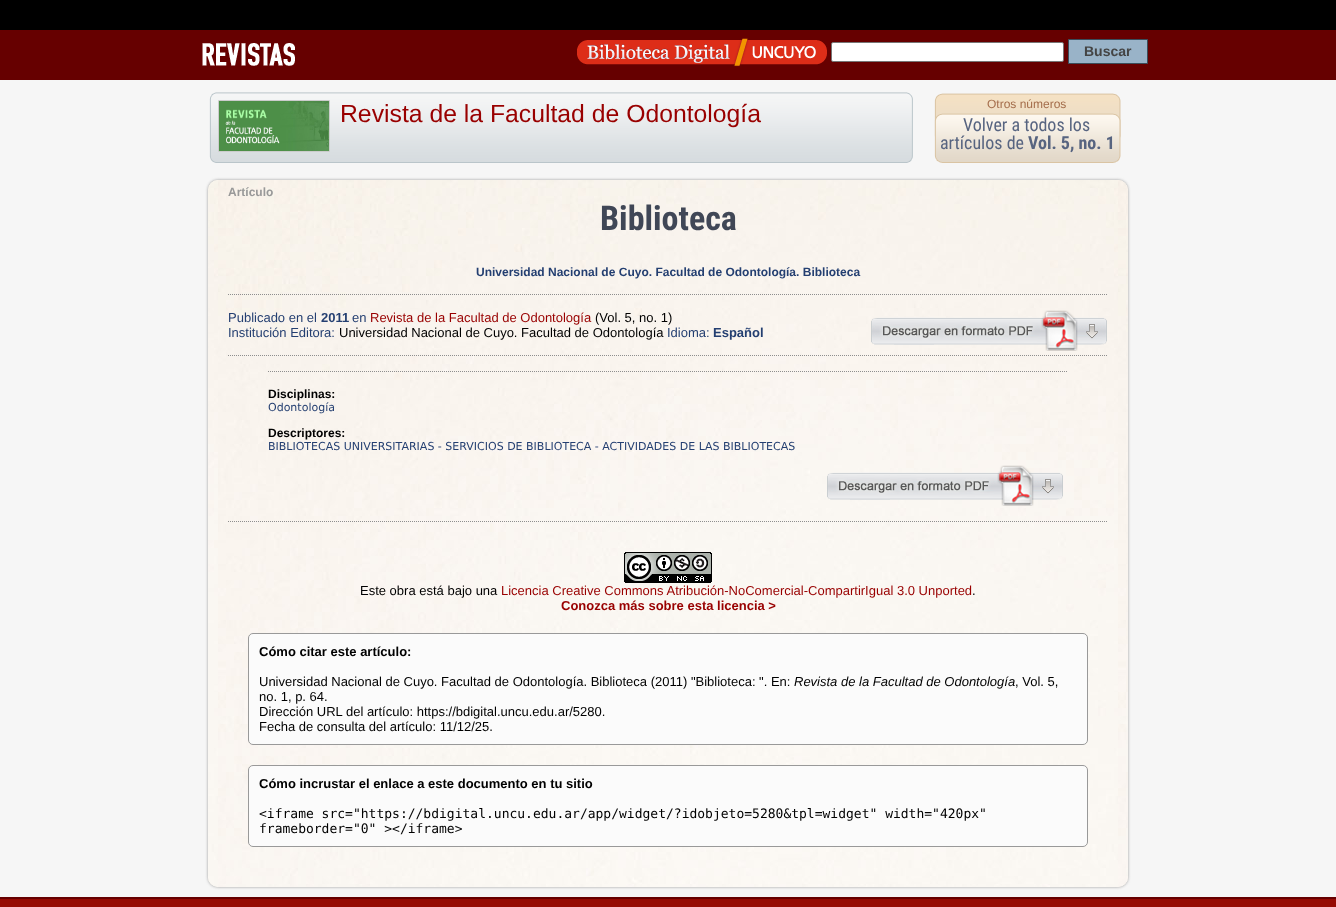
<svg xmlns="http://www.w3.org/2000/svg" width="1336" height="907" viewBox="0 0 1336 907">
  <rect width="100%" height="100%" fill="#f6f6f6"/>
  <path d="M0 0h1336v30H0z" fill="#000"/>
  <path d="M0 30h1336v50H0z" fill="#600"/>
  <image x="202" y="43" width="93" height="23" href="img/1.png"/>
  <image x="577" y="38" width="250" height="29" href="img/2.png"/>
  <rect x="831.5" y="42.5" width="232" height="19" rx="1.5" fill="#fff" stroke="#767676"/>
  <path d="M1068.5 39.5h79v24H1068.5z" fill="#99b3c8" stroke="#3a4d5a"/>
  <image x="209" y="92" width="704" height="71" href="img/3.png"/>
  <path d="M218.5 100.5h111v51H218.5z" fill="none" stroke="#ccc"/>
  <image x="219" y="101" width="110" height="50" href="img/4.png"/>
  <image x="934" y="93" width="187" height="70" href="img/5.png"/>
  <rect x="208" y="180" width="920" height="707" rx="10" fill="#999" filter="blur(1.5px)"/>
  <rect x="208" y="180" width="920" height="707" rx="10" fill="#fef9f2"/>
  <image x="208" y="180" width="920" height="707" href="img/6.png"/>
  <path d="M228 294.5H1108" fill="none" stroke="#8e8e8e" stroke-dasharray="1 1"/>
  <image x="871" y="310" width="236" height="41" href="img/7.png"/>
  <path d="M228 355.5H1108" fill="none" stroke="#8e8e8e" stroke-dasharray="1 1"/>
  <path d="M268 371.5H1068" fill="none" stroke="#8e8e8e" stroke-dasharray="1 1"/>
  <image x="827" y="465" width="236" height="41" href="img/8.png"/>
  <path d="M228 521.5H1108" fill="none" stroke="#8e8e8e" stroke-dasharray="1 1"/>
  <image x="624" y="552" width="88" height="31" href="img/9.png"/>
  <rect x="248.5" y="633.5" width="839" height="111" rx="4.5" fill="#fbfbfb" stroke="#999"/>
  <rect x="248.5" y="765.5" width="839" height="81" rx="4.5" fill="#fbfbfb" stroke="#999"/>
  <path d="M0 899h1336v8H0z" fill="#960a02"/>
  <path d="M0 897h1336v2H0z" fill="#600"/>
  <text x="1084" y="56" font-family="Liberation Sans" font-size="14" font-weight="bold" fill="#444">Buscar</text>
  <text x="340" y="122" font-family="Liberation Sans" font-size="24.75" fill="#900">Revista de la Facultad de Odontología</text>
  <text x="987" y="108" font-family="Liberation Sans" font-size="12" fill="#a46d4b">Otros números</text>
  <g font-family="Roboto Condensed" font-size="18" fill="#576480">
    <text x="963" y="131">Volver a todos los</text>
    <text x="940" y="149">artículos de</text>
  </g>
  <text x="1028" y="149" font-family="Roboto Condensed" font-size="18" font-weight="bold" fill="#576480">Vol. 5, no. 1</text>
  <text x="228" y="196" font-family="Liberation Sans" font-size="12" font-weight="bold" fill="#999">Artículo</text>
  <text x="600" y="230" font-family="Roboto Condensed" font-size="34" font-weight="bold" fill="#404756">Biblioteca</text>
  <text x="476" y="276" font-family="Liberation Sans" font-size="12" font-weight="bold" fill="#243f71">Universidad Nacional de Cuyo. Facultad de Odontología. Biblioteca</text>
  <text x="228" y="322" font-family="Liberation Sans" font-size="13" fill="#243f71">Publicado en el</text>
  <text x="321" y="322" font-family="Liberation Sans" font-size="13" font-weight="bold" fill="#243f71">2011</text>
  <text x="352" y="322" font-family="Liberation Sans" font-size="13" fill="#243f71">en</text>
  <text x="370" y="322" font-family="Liberation Sans" font-size="13" fill="#900">Revista de la Facultad de Odontología</text>
  <text x="595" y="322" font-family="Liberation Sans" font-size="13" fill="#000">(Vol. 5, no. 1)</text>
  <text x="228" y="337" font-family="Liberation Sans" font-size="13" fill="#243f71">Institución Editora:</text>
  <text x="339" y="337" font-family="Liberation Sans" font-size="13" fill="#000">Universidad Nacional de Cuyo. Facultad de Odontología</text>
  <text x="667" y="337" font-family="Liberation Sans" font-size="13" fill="#243f71">Idioma:</text>
  <text x="713" y="337" font-family="Liberation Sans" font-size="13" font-weight="bold" fill="#243f71">Español</text>
  <text x="268" y="398" font-family="Liberation Sans" font-size="12" font-weight="bold" fill="#000">Disciplinas:</text>
  <text x="268" y="411" font-family="DejaVu Sans" font-size="11" fill="#243f71">Odontología</text>
  <text x="268" y="437" font-family="Liberation Sans" font-size="12" font-weight="bold" fill="#000">Descriptores:</text>
  <text x="268" y="450" font-family="DejaVu Sans" font-size="11" fill="#243f71">BIBLIOTECAS UNIVERSITARIAS - SERVICIOS DE BIBLIOTECA - ACTIVIDADES DE LAS BIBLIOTECAS</text>
  <text x="360" y="595" font-family="Liberation Sans" font-size="13" fill="#000">Este obra está bajo una</text>
  <text x="501" y="595" font-family="Liberation Sans" font-size="13" fill="#900">Licencia Creative Commons Atribución-NoComercial-CompartirIgual 3.0 Unported</text>
  <text x="972" y="595" font-family="Liberation Sans" font-size="13" fill="#000">.</text>
  <text x="561" y="610" font-family="Liberation Sans" font-size="13" font-weight="bold" fill="#900">Conozca más sobre esta licencia &gt;</text>
  <text x="259" y="656" font-family="Liberation Sans" font-size="13" font-weight="bold" fill="#000">Cómo citar este artículo:</text>
  <text x="259" y="686" font-family="Liberation Sans" font-size="13" fill="#000">Universidad Nacional de Cuyo. Facultad de Odontología. Biblioteca (2011) "Biblioteca: ". En:</text>
  <text x="794" y="686" font-family="Liberation Sans" font-size="13" font-style="italic" fill="#000">Revista de la Facultad de Odontología</text>
  <g font-family="Liberation Sans" font-size="13" fill="#000">
    <text x="1015" y="686">, Vol. 5,</text>
    <text x="259" y="701">no. 1, p. 64.</text>
    <text x="259" y="716">Dirección URL del artículo: https://bdigital.uncu.edu.ar/5280.</text>
    <text x="259" y="731">Fecha de consulta del artículo: 11/12/25.</text>
  </g>
  <text x="259" y="788" font-family="Liberation Sans" font-size="13" font-weight="bold" fill="#000">Cómo incrustar el enlace a este documento en tu sitio</text>
  <g font-family="DejaVu Sans Mono" font-size="13" fill="#000">
    <text x="259" y="818">&lt;iframe src="https://bdigital.uncu.edu.ar/app/widget/?idobjeto=5280&amp;tpl=widget" width="420px"</text>
    <text x="259" y="833">frameborder="0" &gt;&lt;/iframe&gt;</text>
  </g>
</svg>
